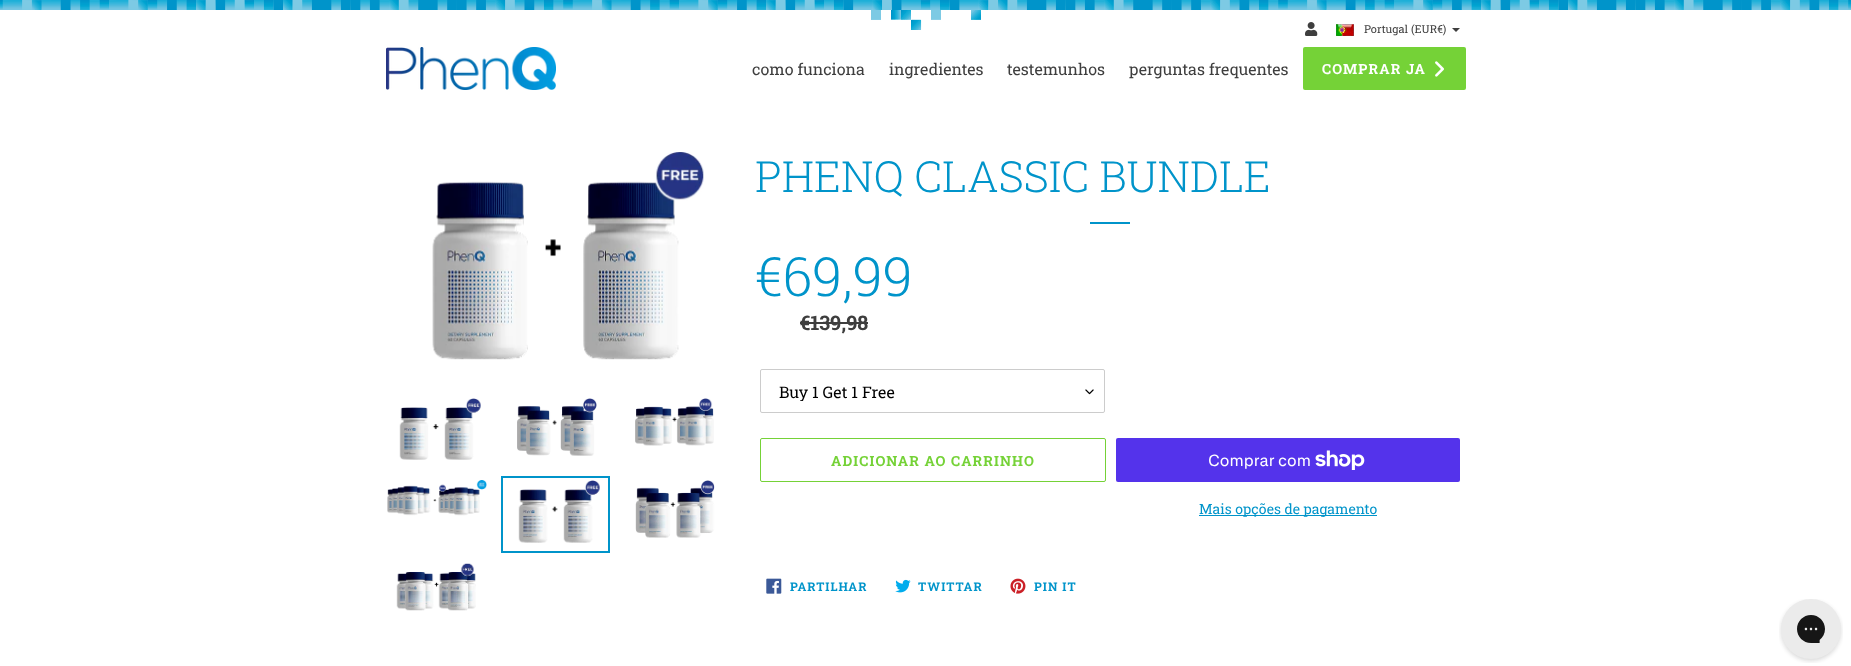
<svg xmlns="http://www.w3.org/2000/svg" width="1851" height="666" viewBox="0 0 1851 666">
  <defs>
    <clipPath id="clip1"><path d="M779 382h297v19H779z"/></clipPath>
  </defs>
  <rect width="100%" height="100%" fill="#fff"/>
  <image x="0" y="0" width="1851" height="10" href="img/1.png"/>
  <image x="871" y="10" width="110" height="20" href="img/2.png"/>
  <image x="1305" y="22" width="13" height="14" href="img/3.png"/>
  <image x="1336" y="24" width="18" height="12" href="img/4.png"/>
  <path d="M1452 28H1460L1456 32Z" fill="#3e3e3e"/>
  <image x="386" y="47" width="170" height="43" href="img/5.png"/>
  <rect x="1303" y="47" width="163" height="43" rx="2" fill="#75d237"/>
  <image x="1435" y="61" width="9" height="16" href="img/6.png"/>
  <image x="432" y="152" width="272" height="208" href="img/7.png"/>
  <image x="399" y="398" width="82" height="62" href="img/8.png"/>
  <image x="517" y="398" width="80" height="58" href="img/9.png"/>
  <image x="635" y="398" width="79" height="48" href="img/10.png"/>
  <image x="387" y="480" width="100" height="36" href="img/11.png"/>
  <path d="M502 477h107v75H502z" fill="none" stroke="#0094ca" stroke-width="2"/>
  <image x="518" y="480" width="82" height="63" href="img/12.png"/>
  <image x="635" y="480" width="80" height="58" href="img/13.png"/>
  <image x="396" y="563" width="80" height="48" href="img/14.png"/>
  <path d="M1090 222h40v2H1090z" fill="#0094ca"/>
  <path d="M800 322h68v2H800z" fill="#3e3e3e"/>
  <image x="1085" y="389" width="9" height="6" href="img/15.png"/>
  <rect x="760.5" y="369.5" width="344" height="43" rx="1.5" fill="none" stroke="#ccc"/>
  <rect x="760.5" y="438.5" width="345" height="43" rx="1.5" fill="none" stroke="#75d237"/>
  <rect x="1116" y="438" width="344" height="44" rx="2" fill="#5433eb"/>
  <image x="1315" y="450" width="50" height="20" href="img/16.png"/>
  <path d="M1199 515h178v1H1199z" fill="#0094ca"/>
  <image x="766" y="578" width="16" height="16" href="img/17.png"/>
  <image x="895" y="579" width="16" height="14" href="img/18.png"/>
  <image x="1010" y="578" width="16" height="16" href="img/19.png"/>
  <image x="1779" y="599" width="64" height="64" href="img/20.png"/>
  <g font-family="Roboto Slab" font-size="11" fill="#3e3e3e">
    <text x="1364" y="33">Portugal</text>
    <text x="1411" y="33">(EUR€)</text>
  </g>
  <g font-family="Roboto Slab" font-size="16" fill="#3e3e3e">
    <text x="752" y="75">como funciona</text>
    <text x="889" y="75">ingredientes</text>
    <text x="1007" y="75">testemunhos</text>
    <text x="1129" y="75">perguntas frequentes</text>
  </g>
  <text x="1322" y="74" font-family="Roboto Slab" font-size="14" font-weight="bold" letter-spacing="1.1" fill="#fff">COMPRAR JA</text>
  <text x="755" y="192" font-family="Roboto Slab" font-size="43" font-weight="300" fill="#0094ca">PHENQ CLASSIC BUNDLE</text>
  <text x="755" y="296" font-family="Roboto Slab" font-size="54" font-weight="300" fill="#0094ca">€69,99</text>
  <text x="800" y="330" font-family="Roboto Slab" font-size="20" font-weight="bold" fill="#3e3e3e">€139,98</text>
  <g clip-path="url(#clip1)">
    <text x="779" y="398" font-family="Roboto Slab" font-size="16" fill="#000">Buy 1 Get 1 Free</text>
  </g>
  <text x="831" y="466" font-family="Roboto Slab" font-size="14" font-weight="bold" letter-spacing="1.1" fill="#75d237">ADICIONAR AO CARRINHO</text>
  <text x="1208" y="466" font-family="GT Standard" font-size="16" fill="#fff">Comprar com</text>
  <text x="1199" y="514" font-family="Roboto Slab" font-size="14" fill="#0094ca">Mais opções de pagamento</text>
  <g font-family="Roboto Slab" font-size="12" font-weight="bold" letter-spacing="1" fill="#0094ca">
    <text x="790" y="591">PARTILHAR</text>
    <text x="918" y="591">TWITTAR</text>
    <text x="1034" y="591">PIN IT</text>
  </g>
</svg>
